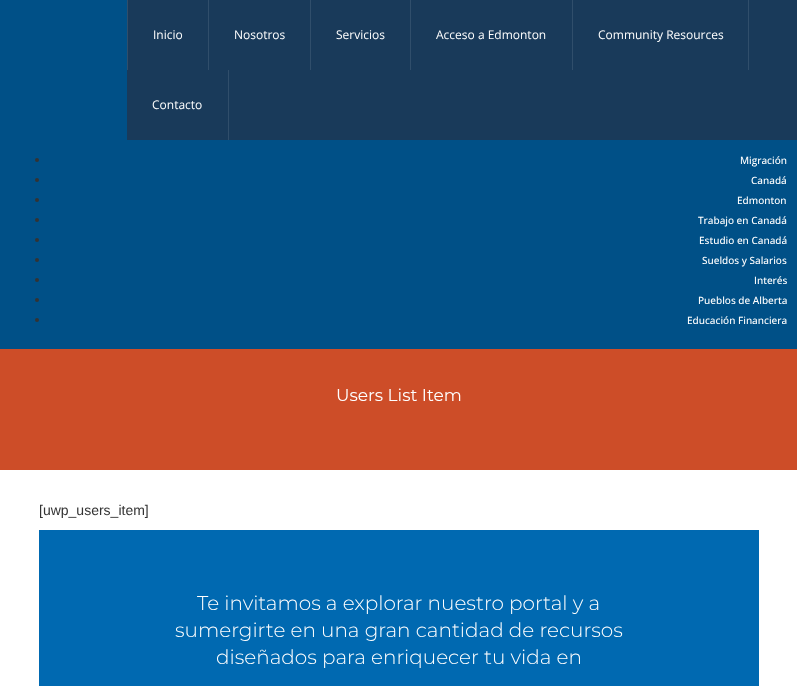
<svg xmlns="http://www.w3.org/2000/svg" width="797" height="686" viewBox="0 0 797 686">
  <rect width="100%" height="100%" fill="#fff"/>
  <path d="M0 0h127v140H0z" fill="#005087"/>
  <path d="M127 0h670v140H127z" fill="#193a5a"/>
  <path d="M208 0h1v70H208z" fill="#304e6b"/>
  <path d="M127 0h1v70H127z" fill="#304e6b"/>
  <path d="M310 0h1v70H310z" fill="#304e6b"/>
  <path d="M410 0h1v70H410z" fill="#304e6b"/>
  <path d="M572 0h1v70H572z" fill="#304e6b"/>
  <path d="M748 0h1v70H748z" fill="#304e6b"/>
  <path d="M228 70h1v70H228z" fill="#304e6b"/>
  <path d="M0 140h797v209H0z" fill="#005087"/>
  <circle cx="37" cy="160" r="2" fill="#333"/>
  <circle cx="37" cy="180" r="2" fill="#333"/>
  <circle cx="37" cy="200" r="2" fill="#333"/>
  <circle cx="37" cy="220" r="2" fill="#333"/>
  <circle cx="37" cy="240" r="2" fill="#333"/>
  <circle cx="37" cy="260" r="2" fill="#333"/>
  <circle cx="37" cy="280" r="2" fill="#333"/>
  <circle cx="37" cy="300" r="2" fill="#333"/>
  <circle cx="37" cy="320" r="2" fill="#333"/>
  <path d="M0 349h797v121H0z" fill="#cd4d28"/>
  <path d="M39 530h720v156H39z" fill="#0069b1"/>
  <g font-family="Open Sans" font-size="12" fill="#fff">
    <text x="153" y="39">Inicio</text>
    <text x="234" y="39">Nosotros</text>
    <text x="336" y="39">Servicios</text>
    <text x="436" y="39">Acceso a Edmonton</text>
    <text x="598" y="39">Community Resources</text>
    <text x="152" y="109">Contacto</text>
  </g>
  <g font-family="Open Sans" font-size="10" font-weight="500" fill="#fff">
    <text x="740" y="164">Migración</text>
    <text x="751" y="184">Canadá</text>
    <text x="737" y="204">Edmonton</text>
    <text x="698" y="224">Trabajo en Canadá</text>
    <text x="699" y="244">Estudio en Canadá</text>
    <text x="702" y="264">Sueldos y Salarios</text>
    <text x="754" y="284">Interés</text>
    <text x="698" y="304">Pueblos de Alberta</text>
    <text x="687" y="324">Educación Financiera</text>
  </g>
  <text x="336" y="401" font-family="Montserrat" font-size="17" fill="#fff">Users List Item</text>
  <text x="39" y="515" font-family="Liberation Sans" font-size="14" fill="#333">[uwp_users_item]</text>
  <g font-family="Montserrat" font-size="20" font-weight="300" fill="#fff">
    <text x="197" y="610">Te invitamos a explorar nuestro portal y a</text>
    <text x="175" y="637">sumergirte en una gran cantidad de recursos</text>
    <text x="216" y="664">diseñados para enriquecer tu vida en</text>
  </g>
</svg>
